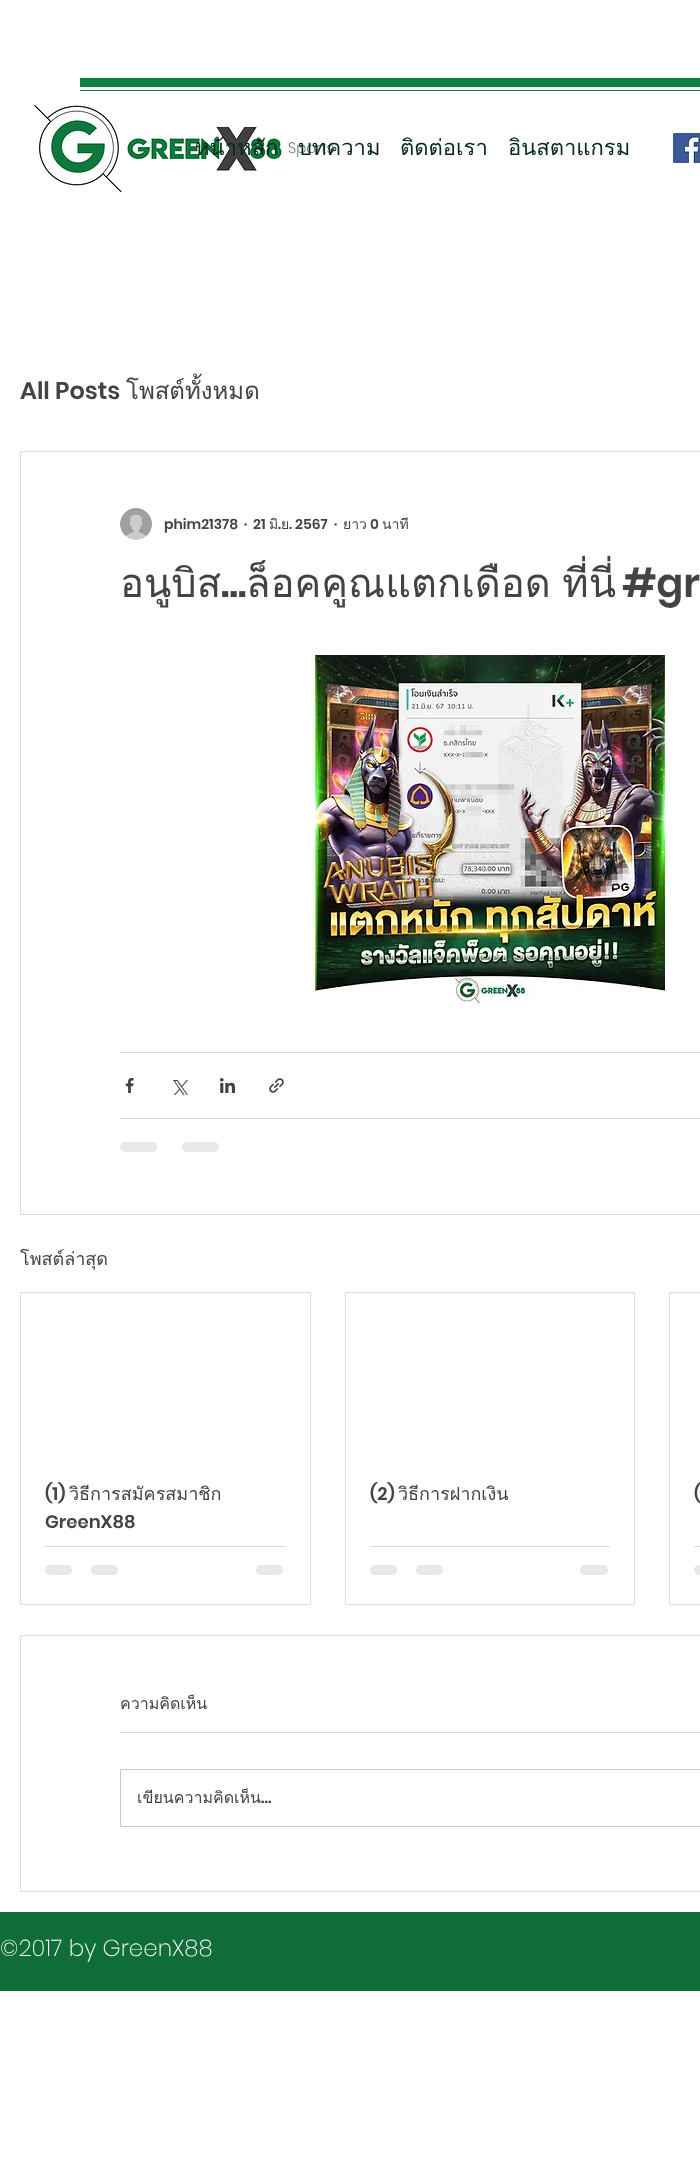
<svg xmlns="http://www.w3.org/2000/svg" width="700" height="2161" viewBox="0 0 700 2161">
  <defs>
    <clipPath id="clip1"><path d="M137 1786h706v24H137z"/></clipPath>
  </defs>
  <rect width="100%" height="100%" fill="#fff"/>
  <path d="M80 78h620v9H80z" fill="#0c803e"/>
  <path d="M80 90h620v1H80z" fill="#0c803e"/>
  <image x="673" y="133" width="27" height="30" href="img/1.png"/>
  <image x="34" y="104" width="248" height="89" href="img/2.png"/>
  <path d="M20.5 451.5h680v763H20.5z" fill="none" stroke="#dcdcdc"/>
  <image x="120" y="508" width="32" height="32" href="img/3.png"/>
  <image x="315" y="655" width="350" height="348" href="img/4.png"/>
  <path d="M120 1052h580v1H120z" fill="#d9d9da"/>
  <image x="125" y="1078" width="9" height="15" href="img/5.png"/>
  <image x="173" y="1080" width="15" height="15" href="img/6.png"/>
  <image x="220" y="1078" width="15" height="15" href="img/7.png"/>
  <image x="269" y="1078" width="15" height="15" href="img/8.png"/>
  <path d="M120 1118h580v1H120z" fill="#d9d9da"/>
  <rect x="120" y="1142" width="37" height="10" rx="5" fill="#e8e8e9"/>
  <rect x="182" y="1142" width="37" height="10" rx="5" fill="#e8e8e9"/>
  <path d="M20.5 1292.5h290v312H20.5z" fill="none" stroke="#dcdcdc"/>
  <path d="M45 1546h241v1H45z" fill="#d9d9da"/>
  <rect x="45" y="1565" width="27" height="10" rx="5" fill="#e8e8e9"/>
  <rect x="91" y="1565" width="27" height="10" rx="5" fill="#e8e8e9"/>
  <rect x="256" y="1565" width="27" height="10" rx="5" fill="#e8e8e9"/>
  <path d="M345.5 1292.5h289v312H345.5z" fill="none" stroke="#dcdcdc"/>
  <path d="M370 1546h240v1H370z" fill="#d9d9da"/>
  <rect x="370" y="1565" width="27" height="10" rx="5" fill="#e8e8e9"/>
  <rect x="416" y="1565" width="27" height="10" rx="5" fill="#e8e8e9"/>
  <rect x="580" y="1565" width="28" height="10" rx="5" fill="#e8e8e9"/>
  <path d="M669.5 1292.5h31v312H669.5z" fill="none" stroke="#dcdcdc"/>
  <path d="M694 1546h6v1H694z" fill="#d9d9da"/>
  <rect x="694" y="1565" width="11" height="10" rx="5" fill="#e8e8e9"/>
  <path d="M20.5 1635.5h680v256H20.5z" fill="none" stroke="#dcdcdc"/>
  <path d="M120 1732h580v1H120z" fill="#d9d9da"/>
  <path d="M120.5 1769.5h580v57H120.5z" fill="none" stroke="#c7c7c7"/>
  <path d="M0 1912h700v79H0z" fill="#0f6e38"/>
  <g font-family="Loma" font-size="22" fill="#042b15">
    <text x="195" y="155">หน้าหลัก</text>
    <text x="400" y="155">ติดต่อเรา</text>
    <text x="508" y="155">อินสตาแกรม</text>
  </g>
  <text x="288" y="153" font-family="Poppins" font-size="15" font-weight="200" fill="#434344">Sports</text>
  <text x="298" y="155" font-family="Loma" font-size="22" fill="#042b15">บทความ</text>
  <text x="20" y="399" font-family="Poppins" font-size="24" font-weight="600" fill="#434344">All Posts</text>
  <text x="126" y="399" font-family="Loma" font-size="24" fill="#434344">โพสต์ทั้งหมด</text>
  <g font-family="Poppins" font-size="14" font-weight="600" fill="#434344">
    <text x="164" y="529">phim21378</text>
    <text x="244" y="529">·</text>
    <text x="253" y="529">21</text>
  </g>
  <g font-family="Loma" font-size="14" fill="#434344">
    <text x="269" y="529">มิ</text>
    <text x="281" y="529">ย</text>
  </g>
  <g font-family="Poppins" font-size="14" font-weight="600" fill="#434344">
    <text x="289" y="529">. 2567</text>
    <text x="278" y="529">.</text>
    <text x="334" y="529">·</text>
  </g>
  <text x="343" y="529" font-family="Loma" font-size="14" fill="#434344">ยาว</text>
  <text x="370" y="529" font-family="Poppins" font-size="14" font-weight="600" fill="#434344">0</text>
  <text x="382" y="529" font-family="Loma" font-size="14" fill="#434344">นาที</text>
  <text x="120" y="597" font-family="Loma" font-size="40" fill="#434344">อนูบิส</text>
  <g font-family="Poppins" font-size="40" font-weight="600" fill="#434344">
    <text x="622" y="597">#gr</text>
    <text x="221" y="597">...</text>
  </g>
  <text x="246" y="597" word-spacing="-2" font-family="Loma" font-size="40" fill="#434344">ล็อคคูณแตกเดือด ที่นี่</text>
  <text x="20" y="1265" font-family="Loma" font-size="18" fill="#434344">โพสต์ล่าสุด</text>
  <text x="45" y="1500" font-family="Poppins" font-size="18" font-weight="600" fill="#434344">(1)</text>
  <text x="69" y="1500" font-family="Loma" font-size="18" fill="#434344">วิธีการสมัครสมาชิก</text>
  <g font-family="Poppins" font-size="18" font-weight="600" fill="#434344">
    <text x="45" y="1528">GreenX88</text>
    <text x="370" y="1500">(2)</text>
  </g>
  <text x="398" y="1500" font-family="Loma" font-size="18" fill="#434344">วิธีการฝากเงิน</text>
  <text x="694" y="1500" font-family="Poppins" font-size="18" font-weight="600" fill="#434344">(</text>
  <text x="120" y="1709" font-family="Loma" font-size="16" fill="#434344">ความคิดเห็น</text>
  <g clip-path="url(#clip1)">
    <text x="137" y="1803" font-family="Loma" font-size="16" fill="#434344">เขียนความคิดเห็น</text>
  </g>
  <text x="261" y="1803" font-family="Poppins" font-size="16" font-weight="600" fill="#434344">…</text>
  <text x="0" y="1956" font-family="Poppins" font-size="23" font-weight="200" fill="#fff">©2017 by GreenX88</text>
</svg>
